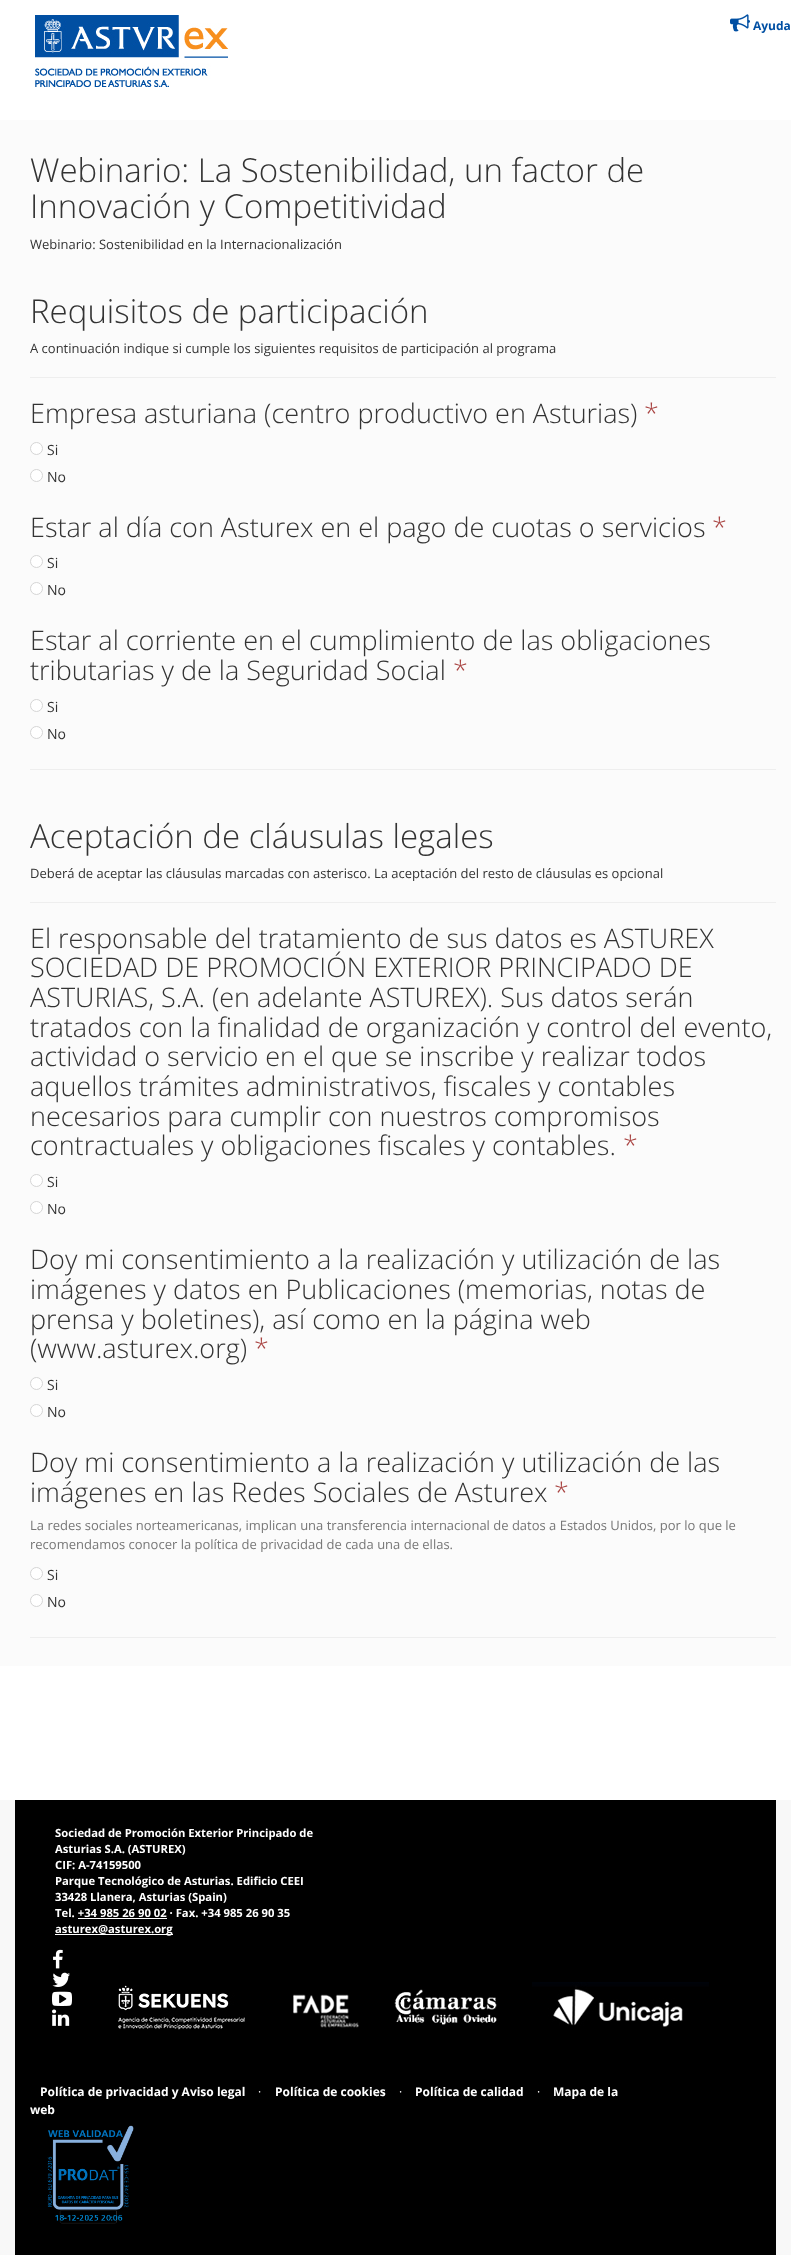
<svg xmlns="http://www.w3.org/2000/svg" width="791" height="2255" viewBox="0 0 791 2255">
  <rect width="100%" height="100%" fill="#fff"/>
  <image x="35" y="15" width="193" height="72" href="img/1.png"/>
  <image x="730" y="14" width="20" height="18" href="img/2.png"/>
  <path d="M0 120h791v1546H0z" fill="#fbfbfb"/>
  <path d="M30 377h746v1H30z" fill="#eee"/>
  <circle cx="36.5" cy="448.5" r="6" fill="#fff" stroke="#d5d5d5"/>
  <circle cx="36.5" cy="475.5" r="6" fill="#fff" stroke="#d5d5d5"/>
  <circle cx="36.5" cy="561.5" r="6" fill="#fff" stroke="#d5d5d5"/>
  <circle cx="36.5" cy="588.5" r="6" fill="#fff" stroke="#d5d5d5"/>
  <circle cx="36.5" cy="705.5" r="6" fill="#fff" stroke="#d5d5d5"/>
  <circle cx="36.5" cy="732.5" r="6" fill="#fff" stroke="#d5d5d5"/>
  <path d="M30 769h746v1H30z" fill="#eee"/>
  <path d="M30 902h746v1H30z" fill="#eee"/>
  <circle cx="36.5" cy="1180.5" r="6" fill="#fff" stroke="#d5d5d5"/>
  <circle cx="36.5" cy="1207.5" r="6" fill="#fff" stroke="#d5d5d5"/>
  <circle cx="36.5" cy="1383.5" r="6" fill="#fff" stroke="#d5d5d5"/>
  <circle cx="36.5" cy="1410.5" r="6" fill="#fff" stroke="#d5d5d5"/>
  <circle cx="36.5" cy="1573.5" r="6" fill="#fff" stroke="#d5d5d5"/>
  <circle cx="36.5" cy="1600.5" r="6" fill="#fff" stroke="#d5d5d5"/>
  <path d="M30 1637h746v1H30z" fill="#eee"/>
  <path d="M0 1800h791v455H0z" fill="#f8f8f8"/>
  <path d="M15 1800h761v455H15z" fill="#000"/>
  <path d="M78 1918h89v1H78z" fill="#fff"/>
  <path d="M55 1934h118v1H55z" fill="#fff"/>
  <image x="53" y="1949" width="10" height="20" href="img/3.png"/>
  <image x="52" y="1972" width="18" height="15" href="img/4.png"/>
  <image x="52" y="1991" width="20" height="15" href="img/5.png"/>
  <image x="52" y="2009" width="18" height="17" href="img/6.png"/>
  <image x="118" y="1985" width="127" height="45" href="img/7.png"/>
  <image x="293" y="1994" width="66" height="34" href="img/8.png"/>
  <image x="394" y="1989" width="103" height="36" href="img/9.png"/>
  <image x="532" y="1982" width="177" height="45" href="img/10.png"/>
  <image x="47" y="2125" width="87" height="99" href="img/11.png"/>
  <text x="753" y="30" font-family="Open Sans" font-size="12" font-weight="bold" fill="#004fa3">Ayuda</text>
  <g font-family="Open Sans" font-size="33" font-weight="300" fill="#333">
    <text x="30" y="182">Webinario: La Sostenibilidad, un factor de</text>
    <text x="30" y="218">Innovación y Competitividad</text>
  </g>
  <text x="30" y="249" font-family="Open Sans" font-size="13" fill="#333">Webinario: Sostenibilidad en la Internacionalización</text>
  <text x="30" y="323" font-family="Open Sans" font-size="33" font-weight="300" fill="#333">Requisitos de participación</text>
  <text x="30" y="353" font-family="Open Sans" font-size="13" fill="#333">A continuación indique si cumple los siguientes requisitos de participación al programa</text>
  <text x="30" y="423" font-family="Open Sans" font-size="27" font-weight="300" fill="#333">Empresa asturiana (centro productivo en Asturias)</text>
  <text x="644" y="423" font-family="Open Sans" font-size="27" font-weight="300" fill="#a94442">*</text>
  <g font-family="Open Sans" font-size="14" fill="#333">
    <text x="47" y="455">Si</text>
    <text x="47" y="482">No</text>
  </g>
  <text x="30" y="537" font-family="Open Sans" font-size="27" font-weight="300" fill="#333">Estar al día con Asturex en el pago de cuotas o servicios</text>
  <text x="712" y="537" font-family="Open Sans" font-size="27" font-weight="300" fill="#a94442">*</text>
  <g font-family="Open Sans" font-size="14" fill="#333">
    <text x="47" y="568">Si</text>
    <text x="47" y="595">No</text>
  </g>
  <g font-family="Open Sans" font-size="27" font-weight="300" fill="#333">
    <text x="30" y="650">Estar al corriente en el cumplimiento de las obligaciones</text>
    <text x="30" y="680">tributarias y de la Seguridad Social</text>
  </g>
  <text x="453" y="680" font-family="Open Sans" font-size="27" font-weight="300" fill="#a94442">*</text>
  <g font-family="Open Sans" font-size="14" fill="#333">
    <text x="47" y="712">Si</text>
    <text x="47" y="739">No</text>
  </g>
  <text x="30" y="848" font-family="Open Sans" font-size="33" font-weight="300" fill="#333">Aceptación de cláusulas legales</text>
  <text x="30" y="878" font-family="Open Sans" font-size="13" fill="#333">Deberá de aceptar las cláusulas marcadas con asterisco. La aceptación del resto de cláusulas es opcional</text>
  <g font-family="Open Sans" font-size="27" font-weight="300" fill="#333">
    <text x="30" y="948">El responsable del tratamiento de sus datos es ASTUREX</text>
    <text x="30" y="977">SOCIEDAD DE PROMOCIÓN EXTERIOR PRINCIPADO DE</text>
    <text x="30" y="1007">ASTURIAS, S.A. (en adelante ASTUREX). Sus datos serán</text>
    <text x="30" y="1037">tratados con la finalidad de organización y control del evento,</text>
    <text x="30" y="1066">actividad o servicio en el que se inscribe y realizar todos</text>
    <text x="30" y="1096">aquellos trámites administrativos, fiscales y contables</text>
    <text x="30" y="1126">necesarios para cumplir con nuestros compromisos</text>
    <text x="30" y="1155">contractuales y obligaciones fiscales y contables.</text>
  </g>
  <text x="623" y="1155" font-family="Open Sans" font-size="27" font-weight="300" fill="#a94442">*</text>
  <g font-family="Open Sans" font-size="14" fill="#333">
    <text x="47" y="1187">Si</text>
    <text x="47" y="1214">No</text>
  </g>
  <g font-family="Open Sans" font-size="27" font-weight="300" fill="#333">
    <text x="30" y="1269">Doy mi consentimiento a la realización y utilización de las</text>
    <text x="30" y="1299">imágenes y datos en Publicaciones (memorias, notas de</text>
    <text x="30" y="1329">prensa y boletines), así como en la página web</text>
    <text x="30" y="1358">(www.asturex.org)</text>
  </g>
  <text x="254" y="1358" font-family="Open Sans" font-size="27" font-weight="300" fill="#a94442">*</text>
  <g font-family="Open Sans" font-size="14" fill="#333">
    <text x="47" y="1390">Si</text>
    <text x="47" y="1417">No</text>
  </g>
  <g font-family="Open Sans" font-size="27" font-weight="300" fill="#333">
    <text x="30" y="1472">Doy mi consentimiento a la realización y utilización de las</text>
    <text x="30" y="1502">imágenes en las Redes Sociales de Asturex</text>
  </g>
  <text x="554" y="1502" font-family="Open Sans" font-size="27" font-weight="300" fill="#a94442">*</text>
  <g font-family="Open Sans" font-size="13" fill="#777">
    <text x="30" y="1530">La redes sociales norteamericanas, implican una transferencia internacional de datos a Estados Unidos, por lo que le</text>
    <text x="30" y="1549">recomendamos conocer la política de privacidad de cada una de ellas.</text>
  </g>
  <g font-family="Open Sans" font-size="14" fill="#333">
    <text x="47" y="1580">Si</text>
    <text x="47" y="1607">No</text>
  </g>
  <g font-family="Open Sans" font-size="11.25" font-weight="bold" fill="#fff">
    <text x="55" y="1837">Sociedad de Promoción Exterior Principado de</text>
    <text x="55" y="1853">Asturias S.A. (ASTUREX)</text>
    <text x="55" y="1869">CIF: A-74159500</text>
    <text x="55" y="1885">Parque Tecnológico de Asturias. Edificio CEEI</text>
    <text x="55" y="1901">33428 Llanera, Asturias (Spain)</text>
    <text x="55" y="1917">Tel. +34 985 26 90 02 · Fax. +34 985 26 90 35</text>
    <text x="55" y="1933">asturex@asturex.org</text>
  </g>
  <text x="40" y="2096" font-family="Open Sans" font-size="12" font-weight="bold" fill="#fff">Política de privacidad y Aviso legal</text>
  <text x="258" y="2096" font-family="Open Sans" font-size="12" fill="#fff">·</text>
  <text x="275" y="2096" font-family="Open Sans" font-size="12" font-weight="bold" fill="#fff">Política de cookies</text>
  <text x="399" y="2096" font-family="Open Sans" font-size="12" fill="#fff">·</text>
  <text x="415" y="2096" font-family="Open Sans" font-size="12" font-weight="bold" fill="#fff">Política de calidad</text>
  <text x="537" y="2096" font-family="Open Sans" font-size="12" fill="#fff">·</text>
  <g font-family="Open Sans" font-size="12" font-weight="bold" fill="#fff">
    <text x="553" y="2096">Mapa de la</text>
    <text x="30" y="2114">web</text>
  </g>
</svg>
